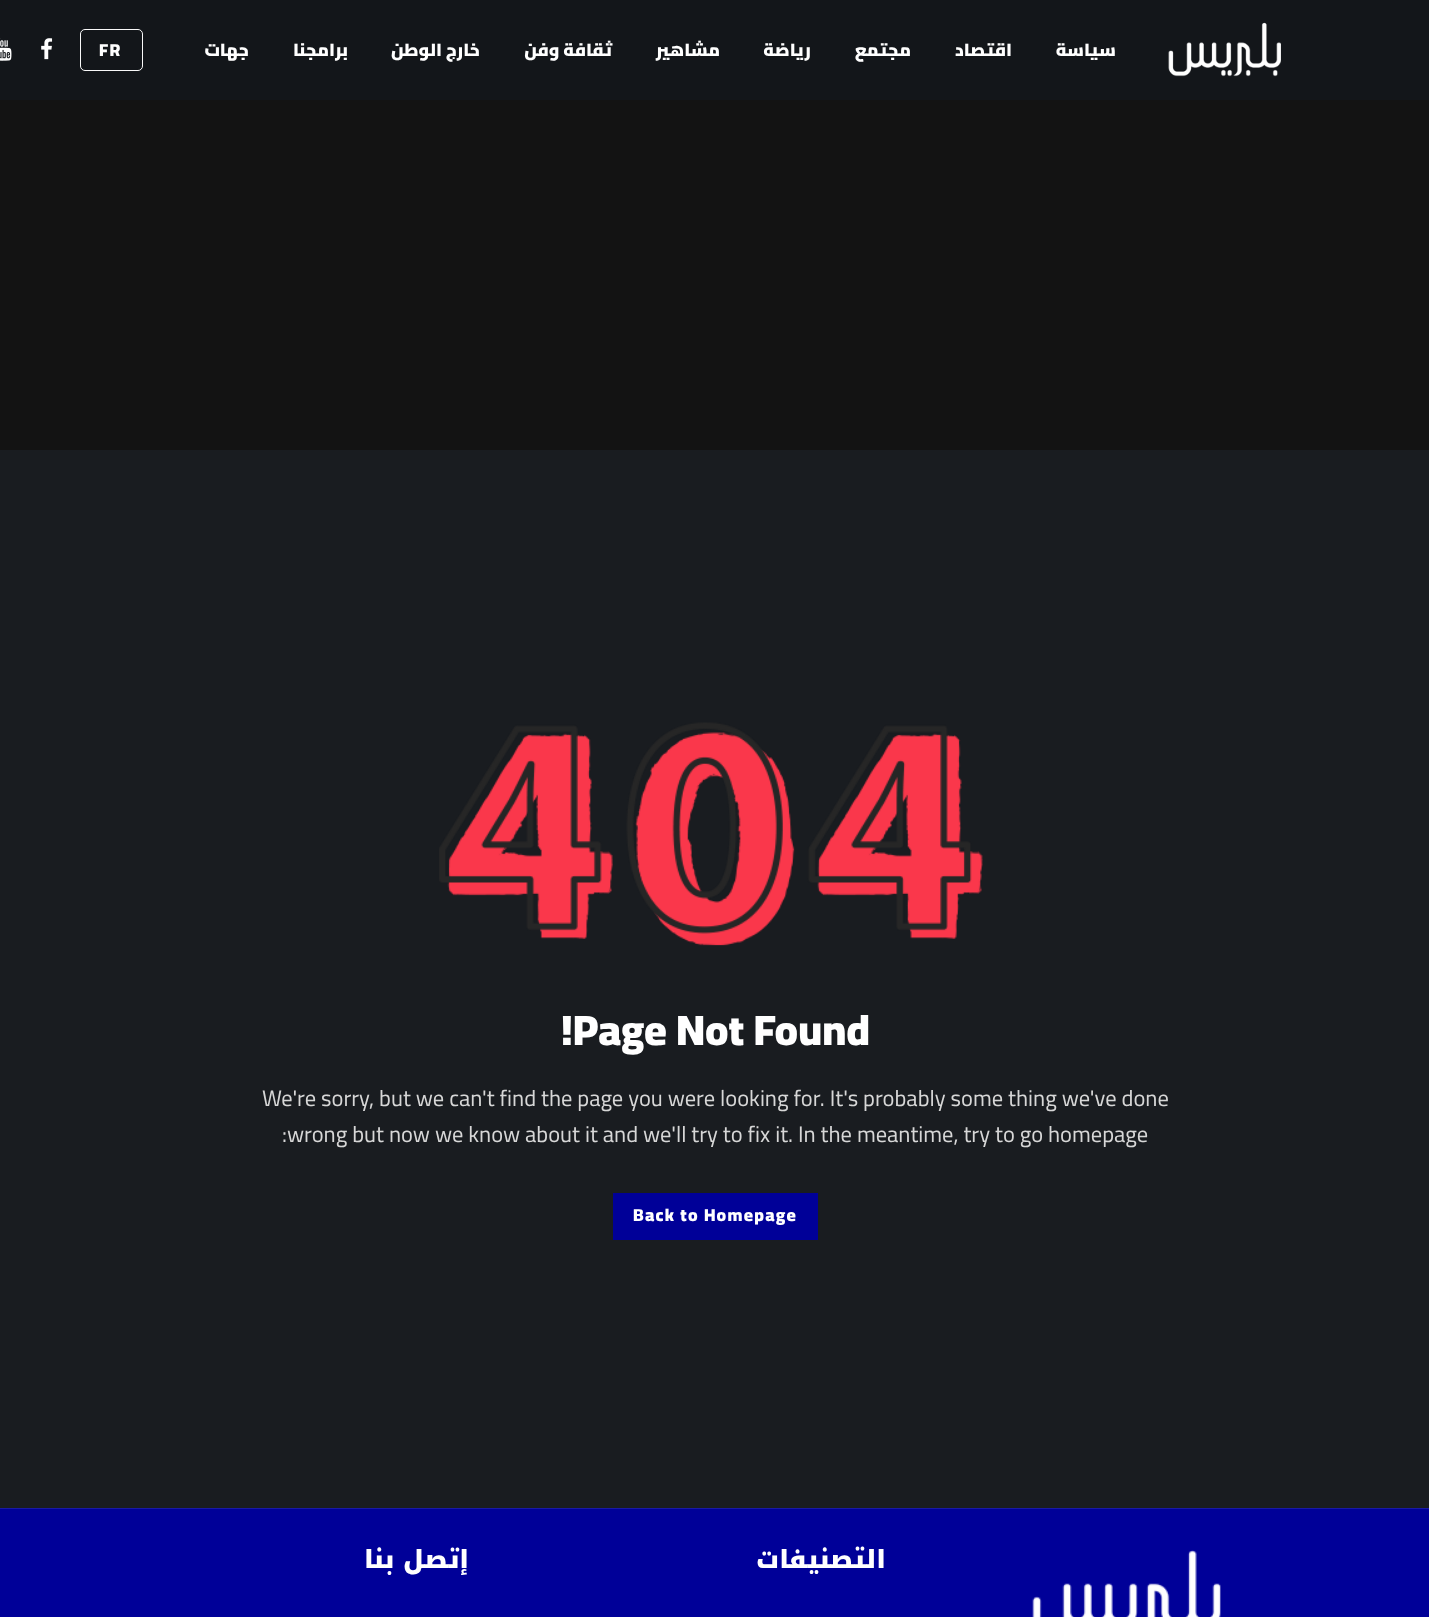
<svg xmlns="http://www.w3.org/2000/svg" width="1429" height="1617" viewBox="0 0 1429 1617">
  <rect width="100%" height="100%" fill="#191c20"/>
  <path d="M0 0h1429v100H0z" fill="#13161a"/>
  <image x="0" y="38" width="12" height="23" href="img/1.png"/>
  <image x="41" y="38" width="12" height="22" href="img/2.png"/>
  <rect x="80.5" y="29.5" width="62" height="41" rx="4.5" fill="none" stroke="#f9f9f9"/>
  <image x="1168" y="22" width="113" height="55" href="img/3.png"/>
  <path d="M0 100h1429v350H0z" fill="#131313"/>
  <image x="439" y="722" width="544" height="224" href="img/4.png"/>
  <path d="M613 1193h205v47H613z" fill="#000098"/>
  <path d="M0 1509h1429v108H0z" fill="#000098"/>
  <path d="M0 1508h1429v1H0z" fill="#1a1aa2"/>
  <image x="1032" y="1550" width="189" height="67" href="img/5.png"/>
  <text x="99" y="56" font-family="Cairo" font-size="17.5" font-weight="900" letter-spacing="1.25" fill="#fff">FR</text>
  <g font-family="Cairo" font-size="17.5" font-weight="900" direction="rtl" fill="#fff">
    <text x="249" y="56">جهات</text>
    <text x="348" y="56">برامجنا</text>
    <text x="480" y="56">خارج الوطن</text>
    <text x="612" y="56">ثقافة وفن</text>
    <text x="720" y="56">مشاهير</text>
    <text x="811" y="56">رياضة</text>
    <text x="911" y="56">مجتمع</text>
    <text x="1012" y="56">اقتصاد</text>
    <text x="1116" y="56">سياسة</text>
  </g>
  <text x="561" y="1045" font-family="Cairo" font-size="42.75" font-weight="900" fill="#fff">!Page Not Found</text>
  <g font-family="Cairo" font-size="22.5" fill="#d7d7d7">
    <text x="262" y="1106">We're sorry, but we can't find the page you were looking for. It's probably some thing we've done</text>
    <text x="282" y="1142">:wrong but now we know about it and we'll try to fix it. In the meantime, try to go homepage</text>
  </g>
  <text x="633" y="1221" font-family="Cairo" font-size="17.5" font-weight="900" letter-spacing="1.25" fill="#fff">Back to Homepage</text>
  <g font-family="Noto Kufi Arabic" font-size="25" font-weight="900" direction="rtl" fill="#fff">
    <text x="469" y="1568">إتصل بنا</text>
    <text x="886" y="1568">التصنيفات</text>
  </g>
</svg>
